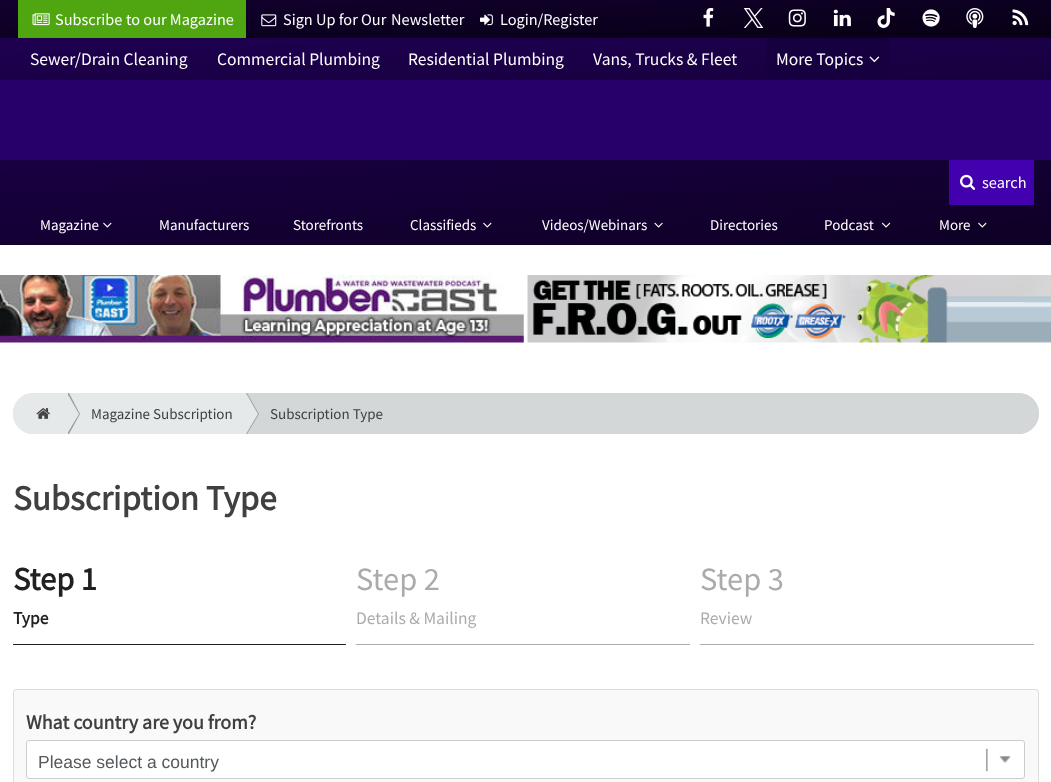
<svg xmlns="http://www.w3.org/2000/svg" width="1051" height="782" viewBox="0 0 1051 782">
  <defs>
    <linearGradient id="g1" gradientUnits="userSpaceOnUse" x1="524" y1="-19" x2="527" y2="56"><stop offset="0" stop-color="#12002f"/><stop offset="1" stop-color="#080015"/></linearGradient>
    <linearGradient id="g2" gradientUnits="userSpaceOnUse" x1="524" y1="16" x2="527" y2="101"><stop offset="0" stop-color="#1f0052"/><stop offset="1" stop-color="#17003e"/></linearGradient>
    <linearGradient id="g3" gradientUnits="userSpaceOnUse" x1="519" y1="118" x2="532" y2="287"><stop offset="0" stop-color="#190043"/><stop offset="1" stop-color="#0e0024"/></linearGradient>
    <linearGradient id="g4" gradientUnits="userSpaceOnUse" x1="964" y1="413" x2="1039" y2="413"><stop offset="0" stop-color="#d3d7d7" stop-opacity="0"/><stop offset="1" stop-color="#d3d7d7"/></linearGradient>
  </defs>
  <rect width="100%" height="100%" fill="#fff"/>
  <path d="M0 80h1051v80H0z" fill="#28006a"/>
  <path d="M0 0h1051v38H0z" fill="url(#g1)"/>
  <path d="M18 0h228v38H18z" fill="#4fa611"/>
  <image x="32" y="13" width="18" height="13" href="img/1.png"/>
  <image x="261" y="14" width="16" height="13" href="img/2.png"/>
  <image x="480" y="14" width="13" height="12" href="img/3.png"/>
  <image x="703" y="8" width="11" height="19" href="img/4.png"/>
  <image x="743" y="8" width="21" height="20" href="img/5.png"/>
  <image x="788" y="9" width="18" height="18" href="img/6.png"/>
  <image x="833" y="9" width="18" height="18" href="img/7.png"/>
  <image x="877" y="8" width="18" height="20" href="img/8.png"/>
  <image x="922" y="9" width="18" height="18" href="img/9.png"/>
  <image x="966" y="8" width="18" height="20" href="img/10.png"/>
  <image x="1012" y="9" width="17" height="17" href="img/11.png"/>
  <path d="M0 38h1051v42H0z" fill="url(#g2)"/>
  <rect x="766" y="38" width="124" height="42" rx="5" fill="#17003f"/>
  <image x="869" y="56" width="11" height="7" href="img/12.png"/>
  <path d="M0 160h1051v85H0z" fill="url(#g3)"/>
  <path d="M949 160h85v45H949z" fill="#4200ae"/>
  <image x="960" y="174" width="16" height="16" href="img/13.png"/>
  <image x="103" y="222" width="9" height="6" href="img/14.png"/>
  <image x="483" y="222" width="9" height="6" href="img/15.png"/>
  <image x="654" y="222" width="9" height="6" href="img/16.png"/>
  <image x="881" y="222" width="10" height="6" href="img/17.png"/>
  <image x="978" y="222" width="9" height="6" href="img/18.png"/>
  <image x="0" y="275" width="524" height="68" href="img/19.png"/>
  <image x="527" y="275" width="524" height="68" href="img/20.png"/>
  <rect x="13" y="393" width="1026" height="41" rx="20.5" fill="#d3d7d7"/>
  <path d="M33.5 393H66V434H33.5C22 434 13 425 13 413.5C13 402 22 393 33.5 393Z" fill="#e5e9e9"/>
  <path d="M67 393h178v41H67z" fill="#e5e9e9"/>
  <path d="M69 393L80 414L69 434H68V393Z" fill="#9c9e9e"/>
  <path d="M67 393L79 414L67 434H66V393Z" fill="#e5e9e9"/>
  <image x="36" y="408" width="14" height="11" href="img/21.png"/>
  <path d="M247 393L259 414L247 434H246V393Z" fill="#9c9e9e"/>
  <path d="M246 393L258 414L246 434H245V393Z" fill="#e5e9e9"/>
  <path d="M964 393H1018.5C1030 393 1039 402 1039 413.5C1039 425 1030 434 1018.5 434H964Z" fill="url(#g4)"/>
  <path d="M13 644h333v1H13z" fill="#212121"/>
  <path d="M356 644h334v1H356z" fill="#ababab"/>
  <path d="M700 644h334v1H700z" fill="#ababab"/>
  <rect x="13.5" y="689.5" width="1025" height="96" rx="2.5" fill="#f9f9f9" stroke="#ddd"/>
  <rect x="26" y="740" width="999" height="39" rx="3" fill="#fff"/>
  <image x="986" y="748" width="25" height="24" href="img/22.png"/>
  <rect x="26.5" y="740.5" width="998" height="38" rx="2.5" fill="none" stroke="#ccc"/>
  <g font-family="Source Sans Pro" font-size="16.25" fill="#fff">
    <text x="55" y="25">Subscribe</text>
    <text x="126" y="25">to our Magazine</text>
    <text x="283" y="25">Sign Up for Our</text>
    <text x="391" y="25">Newsletter</text>
    <text x="500" y="25">Login/Register</text>
  </g>
  <g font-family="Source Sans Pro" font-size="17.5" fill="#fff">
    <text x="30" y="65">Sewer/Drain Cleaning</text>
    <text x="217" y="65">Commercial Plumbing</text>
    <text x="408" y="65">Residential Plumbing</text>
    <text x="593" y="65">Vans, Trucks &amp; Fleet</text>
    <text x="776" y="65">More Topics</text>
  </g>
  <text x="982" y="188" font-family="Source Sans Pro" font-size="16.25" fill="#fff">search</text>
  <g font-family="Source Sans Pro" font-size="15" fill="#fff">
    <text x="40" y="230">Magazine</text>
    <text x="159" y="230">Manufacturers</text>
    <text x="293" y="230">Storefronts</text>
    <text x="410" y="230">Classifieds</text>
    <text x="542" y="230">Videos/Webinars</text>
    <text x="710" y="230">Directories</text>
    <text x="824" y="230">Podcast</text>
    <text x="939" y="230">More</text>
  </g>
  <g font-family="Source Sans Pro" font-size="15" fill="#404040">
    <text x="91" y="419">Magazine Subscription</text>
    <text x="270" y="419">Subscription Type</text>
  </g>
  <text x="13" y="510" font-family="Source Sans Pro" font-size="35" font-weight="bold" fill="#404040">Subscription Type</text>
  <text x="13" y="590" font-family="Source Sans Pro" font-size="32.5" font-weight="bold" fill="#212121">Step 1</text>
  <text x="13" y="624" font-family="Source Sans Pro" font-size="17.5" font-weight="bold" fill="#212121">Type</text>
  <text x="356" y="590" font-family="Source Sans Pro" font-size="32.5" fill="#ababab">Step 2</text>
  <text x="356" y="624" font-family="Source Sans Pro" font-size="17.5" fill="#ababab">Details &amp; Mailing</text>
  <text x="700" y="590" font-family="Source Sans Pro" font-size="32.5" fill="#ababab">Step 3</text>
  <text x="700" y="624" font-family="Source Sans Pro" font-size="17.5" fill="#ababab">Review</text>
  <text x="26" y="729" font-family="Source Sans Pro" font-size="20" font-weight="bold" fill="#404040">What country are you from?</text>
  <text x="38" y="768" font-family="Liberation Sans" font-size="17.5" fill="#55595c">Please select a country</text>
</svg>
